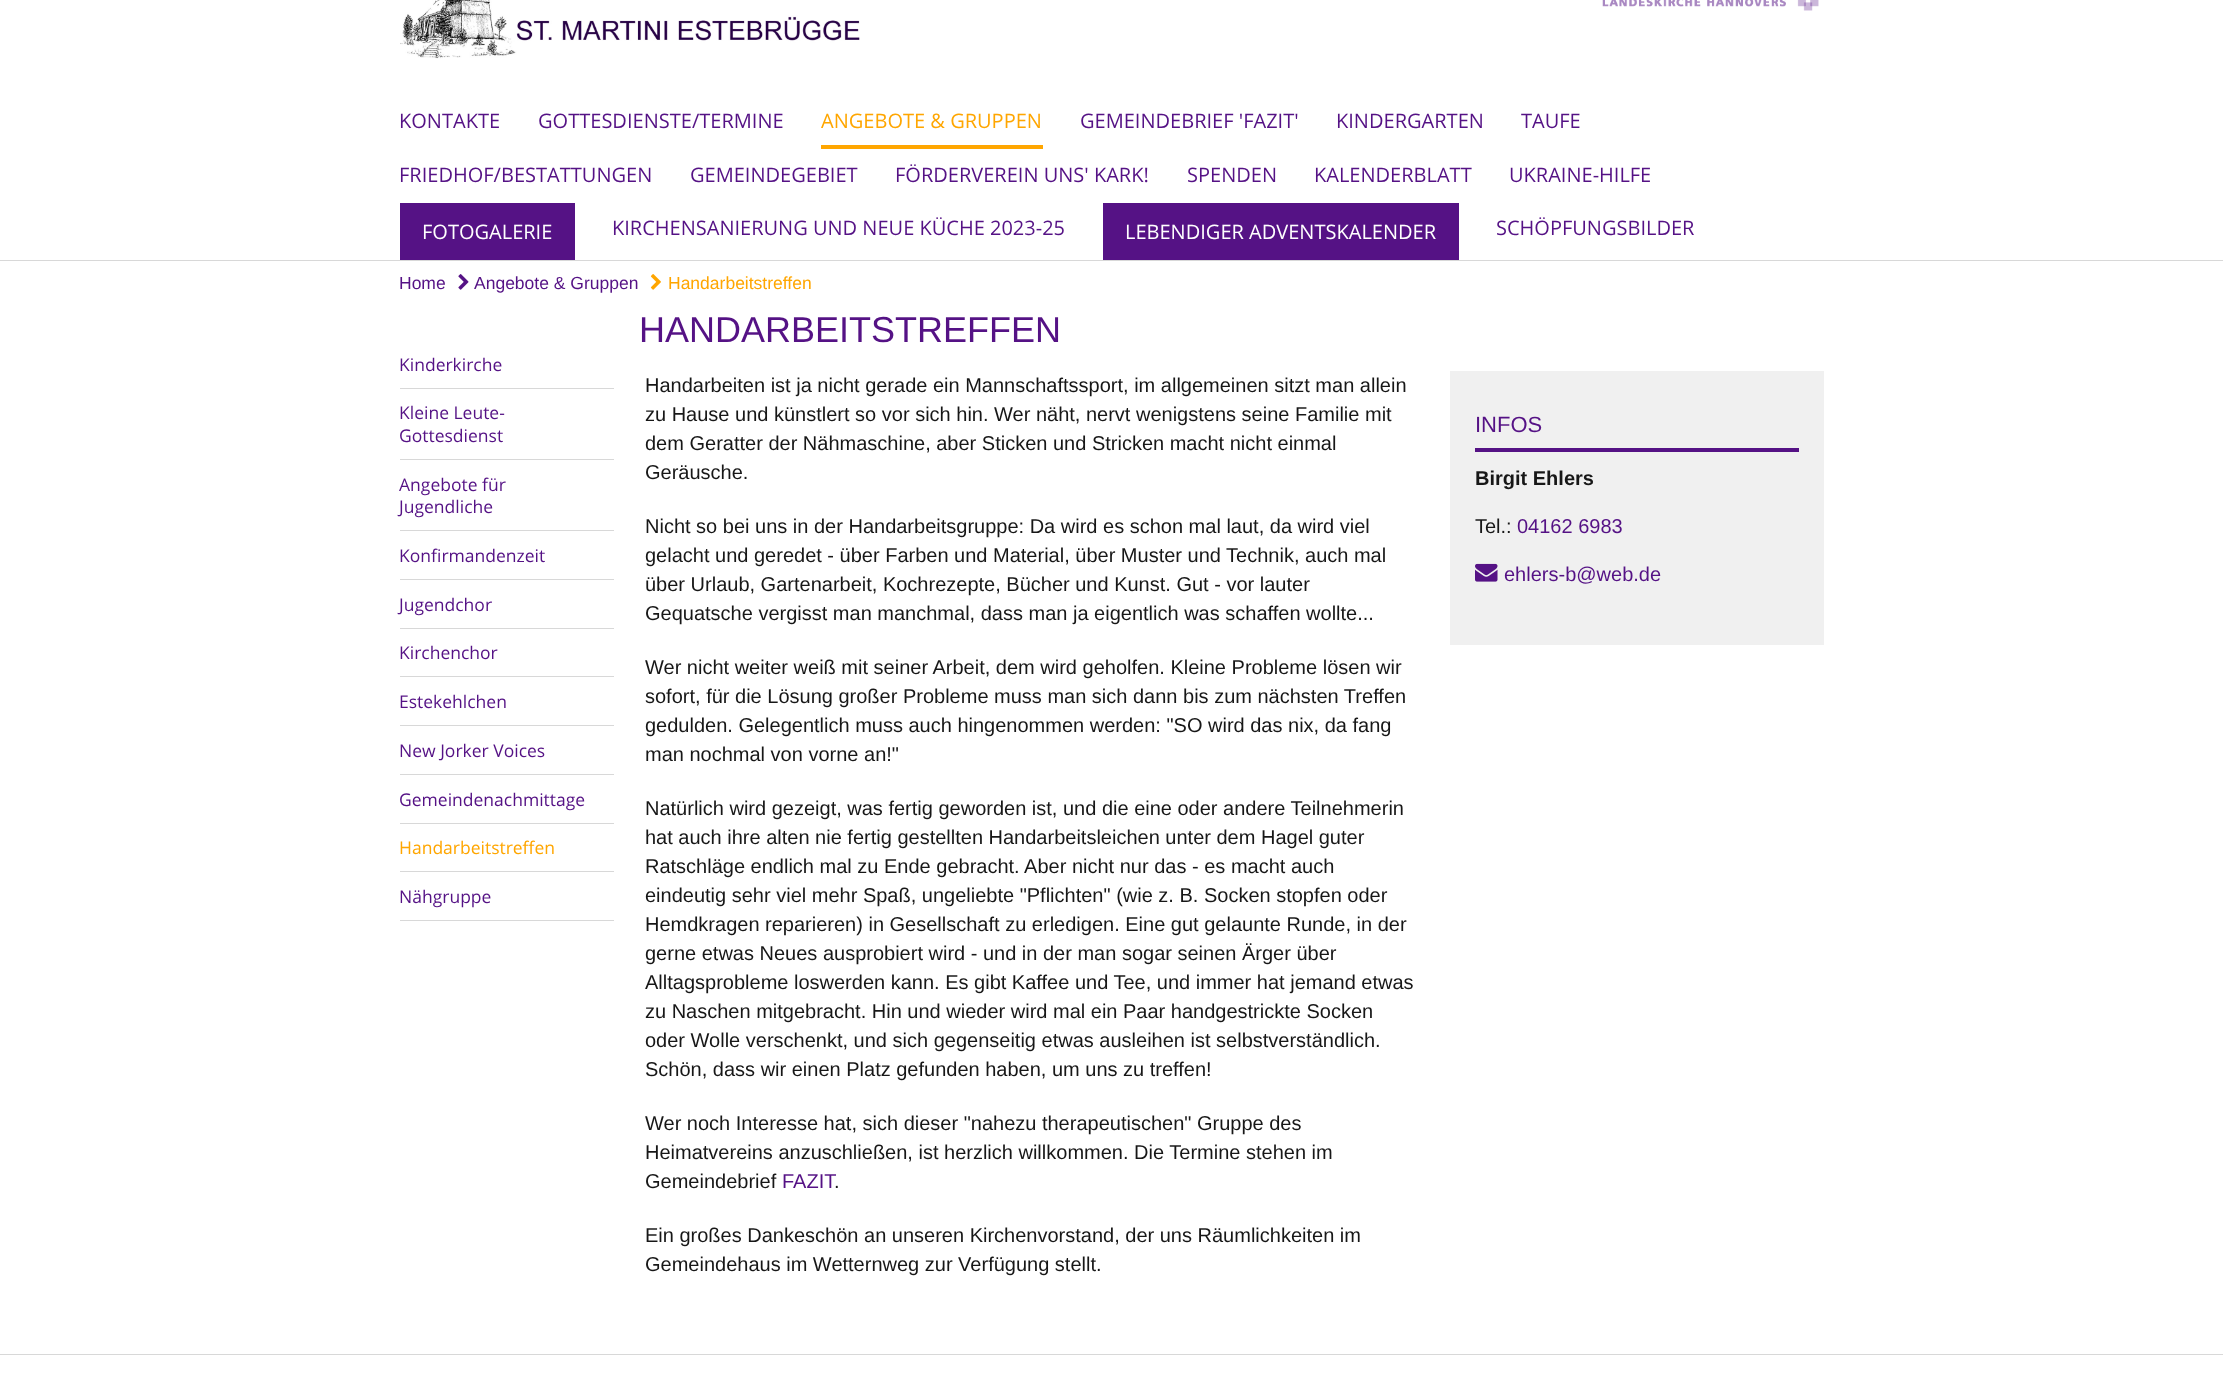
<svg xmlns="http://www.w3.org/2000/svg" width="2223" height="1382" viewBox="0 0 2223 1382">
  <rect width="100%" height="100%" fill="#fff"/>
  <path d="M0 260h2223v1H0z" fill="#d8d8d8"/>
  <image x="400" y="0" width="460" height="59" href="img/1.png"/>
  <image x="1602" y="0" width="217" height="11" href="img/2.png"/>
  <path d="M821 145h222v4H821z" fill="#ffa600"/>
  <path d="M400 203h175v57H400z" fill="#551285"/>
  <path d="M1103 203h356v57H1103z" fill="#551285"/>
  <image x="458" y="274" width="11" height="16" href="img/3.png"/>
  <image x="650" y="274" width="11" height="16" href="img/4.png"/>
  <path d="M400 388h214v1H400z" fill="#d8d8d8"/>
  <path d="M400 459h214v1H400z" fill="#d8d8d8"/>
  <path d="M400 530h214v1H400z" fill="#d8d8d8"/>
  <path d="M400 579h214v1H400z" fill="#d8d8d8"/>
  <path d="M400 628h214v1H400z" fill="#d8d8d8"/>
  <path d="M400 676h214v1H400z" fill="#d8d8d8"/>
  <path d="M400 725h214v1H400z" fill="#d8d8d8"/>
  <path d="M400 774h214v1H400z" fill="#d8d8d8"/>
  <path d="M400 823h214v1H400z" fill="#d8d8d8"/>
  <path d="M400 871h214v1H400z" fill="#d8d8d8"/>
  <path d="M400 920h214v1H400z" fill="#d8d8d8"/>
  <path d="M1450 371h374v274H1450z" fill="#f0f0f0"/>
  <path d="M1475 448h324v4H1475z" fill="#551285"/>
  <image x="1475" y="563" width="23" height="19" href="img/5.png"/>
  <path d="M0 1354h2223v1H0z" fill="#d8d8d8"/>
  <g font-family="Open Sans" font-size="20" fill="#551285">
    <text x="399" y="128">KONTAKTE</text>
    <text x="538" y="128">GOTTESDIENSTE/TERMINE</text>
  </g>
  <text x="821" y="128" font-family="Open Sans" font-size="20" fill="#ffa600">ANGEBOTE &amp; GRUPPEN</text>
  <g font-family="Open Sans" font-size="20" fill="#551285">
    <text x="1080" y="128">GEMEINDEBRIEF 'FAZIT'</text>
    <text x="1336" y="128">KINDERGARTEN</text>
    <text x="1521" y="128">TAUFE</text>
    <text x="399" y="182">FRIEDHOF/BESTATTUNGEN</text>
    <text x="690" y="182">GEMEINDEGEBIET</text>
    <text x="895" y="182">FÖRDERVEREIN UNS' KARK!</text>
    <text x="1187" y="182">SPENDEN</text>
    <text x="1314" y="182">KALENDERBLATT</text>
    <text x="1509" y="182">UKRAINE-HILFE</text>
  </g>
  <text x="422" y="239" font-family="Open Sans" font-size="20" fill="#fff">FOTOGALERIE</text>
  <text x="612" y="235" font-family="Open Sans" font-size="20" fill="#551285">KIRCHENSANIERUNG UND NEUE KÜCHE 2023-25</text>
  <text x="1125" y="239" font-family="Open Sans" font-size="20" fill="#fff">LEBENDIGER ADVENTSKALENDER</text>
  <text x="1496" y="235" font-family="Open Sans" font-size="20" fill="#551285">SCHÖPFUNGSBILDER</text>
  <g font-family="Liberation Sans" font-size="17.5" fill="#551285">
    <text x="399" y="289">Home</text>
    <text x="474" y="289">Angebote &amp; Gruppen</text>
  </g>
  <text x="668" y="289" font-family="Liberation Sans" font-size="17.5" fill="#ffa600">Handarbeitstreffen</text>
  <g font-family="Open Sans" font-size="17.5" fill="#551285">
    <text x="399" y="371">Kinderkirche</text>
    <text x="399" y="419">Kleine Leute-</text>
    <text x="399" y="442">Gottesdienst</text>
    <text x="399" y="491">Angebote für</text>
    <text x="399" y="513">Jugendliche</text>
    <text x="399" y="562">Konfirmandenzeit</text>
    <text x="399" y="611">Jugendchor</text>
    <text x="399" y="659">Kirchenchor</text>
    <text x="399" y="708">Estekehlchen</text>
    <text x="399" y="757">New Jorker Voices</text>
    <text x="399" y="806">Gemeindenachmittage</text>
  </g>
  <text x="399" y="854" font-family="Open Sans" font-size="17.5" fill="#ffa600">Handarbeitstreffen</text>
  <text x="399" y="903" font-family="Open Sans" font-size="17.5" fill="#551285">Nähgruppe</text>
  <text x="639" y="342" font-family="Liberation Sans" font-size="36" fill="#551285">HANDARBEITSTREFFEN</text>
  <g font-family="Liberation Sans" font-size="20" fill="#171717">
    <text x="645" y="392">Handarbeiten ist ja nicht gerade ein Mannschaftssport, im allgemeinen sitzt man allein</text>
    <text x="645" y="421">zu Hause und künstlert so vor sich hin. Wer näht, nervt wenigstens seine Familie mit</text>
    <text x="645" y="450">dem Geratter der Nähmaschine, aber Sticken und Stricken macht nicht einmal</text>
    <text x="645" y="479">Geräusche.</text>
    <text x="645" y="533">Nicht so bei uns in der Handarbeitsgruppe: Da wird es schon mal laut, da wird viel</text>
    <text x="645" y="562">gelacht und geredet - über Farben und Material, über Muster und Technik, auch mal</text>
    <text x="645" y="591">über Urlaub, Gartenarbeit, Kochrezepte, Bücher und Kunst. Gut - vor lauter</text>
    <text x="645" y="620">Gequatsche vergisst man manchmal, dass man ja eigentlich was schaffen wollte...</text>
    <text x="645" y="674">Wer nicht weiter weiß mit seiner Arbeit, dem wird geholfen. Kleine Probleme lösen wir</text>
    <text x="645" y="703">sofort, für die Lösung großer Probleme muss man sich dann bis zum nächsten Treffen</text>
    <text x="645" y="732">gedulden. Gelegentlich muss auch hingenommen werden: "SO wird das nix, da fang</text>
    <text x="645" y="761">man nochmal von vorne an!"</text>
    <text x="645" y="815">Natürlich wird gezeigt, was fertig geworden ist, und die eine oder andere Teilnehmerin</text>
    <text x="645" y="844">hat auch ihre alten nie fertig gestellten Handarbeitsleichen unter dem Hagel guter</text>
    <text x="645" y="873">Ratschläge endlich mal zu Ende gebracht. Aber nicht nur das - es macht auch</text>
    <text x="645" y="902">eindeutig sehr viel mehr Spaß, ungeliebte "Pflichten" (wie z. B. Socken stopfen oder</text>
    <text x="645" y="931">Hemdkragen reparieren) in Gesellschaft zu erledigen. Eine gut gelaunte Runde, in der</text>
    <text x="645" y="960">gerne etwas Neues ausprobiert wird - und in der man sogar seinen Ärger über</text>
    <text x="645" y="989">Alltagsprobleme loswerden kann. Es gibt Kaffee und Tee, und immer hat jemand etwas</text>
    <text x="645" y="1018">zu Naschen mitgebracht. Hin und wieder wird mal ein Paar handgestrickte Socken</text>
    <text x="645" y="1047">oder Wolle verschenkt, und sich gegenseitig etwas ausleihen ist selbstverständlich.</text>
    <text x="645" y="1076">Schön, dass wir einen Platz gefunden haben, um uns zu treffen!</text>
    <text x="645" y="1130">Wer noch Interesse hat, sich dieser "nahezu therapeutischen" Gruppe des</text>
    <text x="645" y="1159">Heimatvereins anzuschließen, ist herzlich willkommen. Die Termine stehen im</text>
    <text x="645" y="1188">Gemeindebrief</text>
  </g>
  <text x="782" y="1188" font-family="Liberation Sans" font-size="20" fill="#551285">FAZIT</text>
  <g font-family="Liberation Sans" font-size="20" fill="#171717">
    <text x="834" y="1188">.</text>
    <text x="645" y="1242">Ein großes Dankeschön an unseren Kirchenvorstand, der uns Räumlichkeiten im</text>
    <text x="645" y="1271">Gemeindehaus im Wetternweg zur Verfügung stellt.</text>
  </g>
  <text x="1475" y="432" font-family="Liberation Sans" font-size="22" fill="#551285">INFOS</text>
  <text x="1475" y="485" font-family="Liberation Sans" font-size="20" font-weight="bold" fill="#171717">Birgit Ehlers</text>
  <text x="1475" y="533" font-family="Liberation Sans" font-size="20" fill="#171717">Tel.:</text>
  <g font-family="Liberation Sans" font-size="20" fill="#551285">
    <text x="1517" y="533">04162 6983</text>
    <text x="1504" y="581">ehlers-b@web.de</text>
  </g>
</svg>
